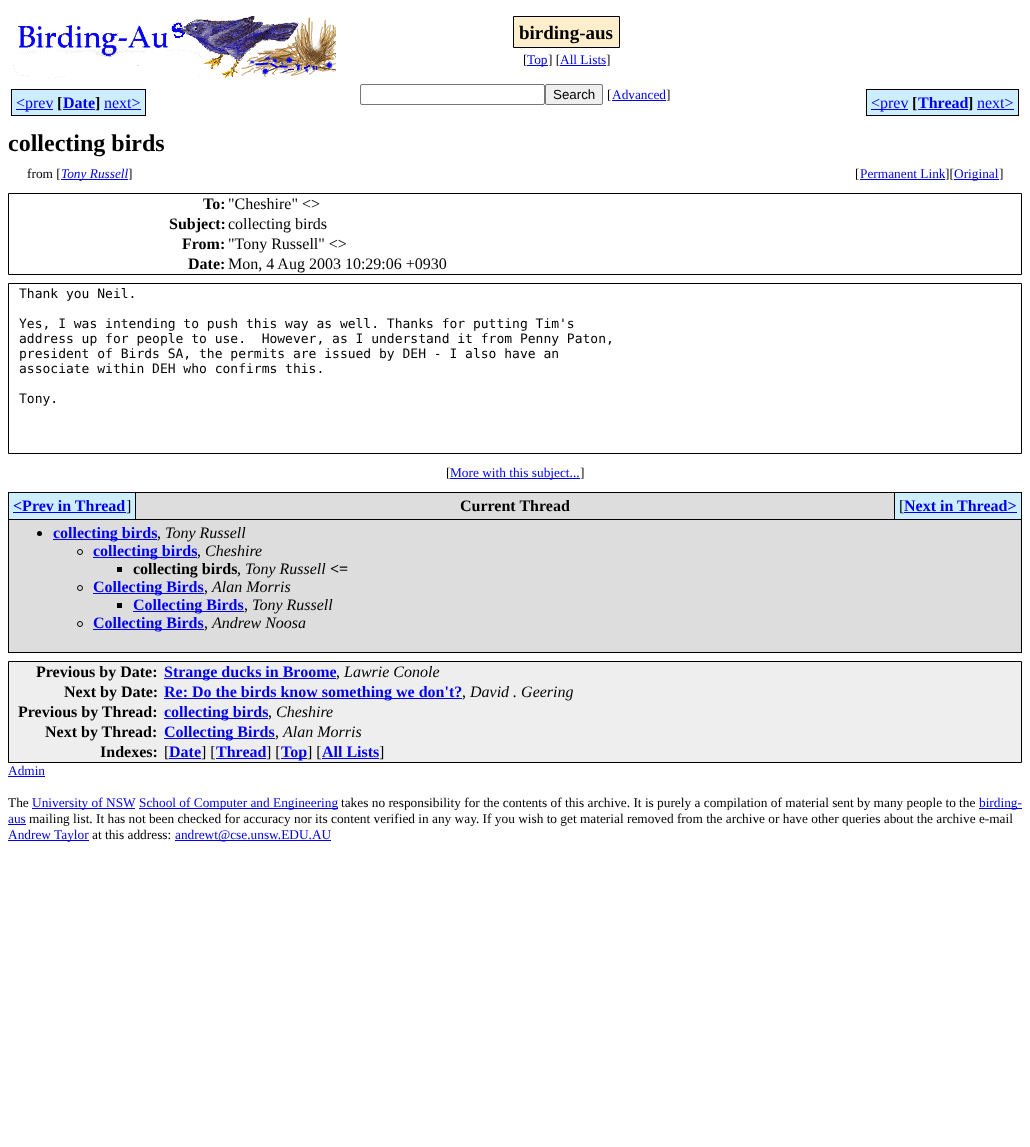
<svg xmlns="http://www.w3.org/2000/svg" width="1030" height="1147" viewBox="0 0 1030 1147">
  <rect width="100%" height="100%" fill="#fff"/>
  <image x="13" y="16" width="323" height="62" href="img/1.png"/>
  <path d="M513.5 16.5h106v31H513.5z" fill="#fec" stroke="#000"/>
  <path d="M527 65h21v1H527z" fill="#00e"/>
  <path d="M560 65h46v1H560z" fill="#00e"/>
  <path d="M12 90h41v25H12z" fill="#cef"/>
  <path d="M11 89h42v1H11z" fill="#000"/>
  <path d="M11 115h42v1H11z" fill="#000"/>
  <path d="M11 89h1v27H11z" fill="#000"/>
  <path d="M53 89h10v27H53z" fill="#cef"/>
  <path d="M53 115h42v1H53z" fill="#000"/>
  <path d="M16 109h37v1H16z" fill="#00e"/>
  <path d="M63 90h32v25H63z" fill="#cef"/>
  <path d="M63 109h32v1H63z" fill="#00e"/>
  <path d="M53 89h42v1H53z" fill="#000"/>
  <path d="M95 89h9v27H95z" fill="#cef"/>
  <path d="M95 89h51v1H95z" fill="#000"/>
  <path d="M95 115h9v1H95z" fill="#000"/>
  <path d="M104 90h41v25H104z" fill="#cef"/>
  <path d="M145 89h1v27H145z" fill="#000"/>
  <path d="M104 115h42v1H104z" fill="#000"/>
  <path d="M104 109h37v1H104z" fill="#00e"/>
  <rect x="360.5" y="84.5" width="184" height="20" rx="1.5" fill="none" stroke="#767676"/>
  <rect x="545.5" y="84.5" width="57" height="20" rx="1.5" fill="#efefef" stroke="#767676"/>
  <path d="M612 100h54v1H612z" fill="#00e"/>
  <path d="M867 90h41v25H867z" fill="#cef"/>
  <path d="M866 89h42v1H866z" fill="#000"/>
  <path d="M866 115h42v1H866z" fill="#000"/>
  <path d="M866 89h1v27H866z" fill="#000"/>
  <path d="M908 89h10v27H908z" fill="#cef"/>
  <path d="M908 115h60v1H908z" fill="#000"/>
  <path d="M871 109h37v1H871z" fill="#00e"/>
  <path d="M918 90h50v25H918z" fill="#cef"/>
  <path d="M918 109h50v1H918z" fill="#00e"/>
  <path d="M908 89h60v1H908z" fill="#000"/>
  <path d="M968 89h9v27H968z" fill="#cef"/>
  <path d="M968 89h51v1H968z" fill="#000"/>
  <path d="M968 115h9v1H968z" fill="#000"/>
  <path d="M977 90h41v25H977z" fill="#cef"/>
  <path d="M1018 89h1v27H1018z" fill="#000"/>
  <path d="M977 115h42v1H977z" fill="#000"/>
  <path d="M977 109h37v1H977z" fill="#00e"/>
  <path d="M61 179h67v1H61z" fill="#00e"/>
  <path d="M860 179h85v1H860z" fill="#00e"/>
  <path d="M954 179h45v1H954z" fill="#00e"/>
  <path d="M8.5 193.5h1013v81H8.5z" fill="none" stroke="#000"/>
  <path d="M8.5 283.5h1013v170H8.5z" fill="none" stroke="#000"/>
  <path d="M450 478h130v1H450z" fill="#00e"/>
  <path d="M8 492h1014v161H8z" fill="#000"/>
  <path d="M9 493h126v26H9z" fill="#cef"/>
  <path d="M13 512h113v1H13z" fill="#00e"/>
  <path d="M136 493h758v26H136z" fill="#ddd"/>
  <path d="M895 493h126v26H895z" fill="#cef"/>
  <path d="M904 512h113v1H904z" fill="#00e"/>
  <path d="M9 520h1012v132H9z" fill="#ddd"/>
  <circle cx="39.5" cy="533.5" r="2.5" fill="#000"/>
  <path d="M53 539h104v1H53z" fill="#00e"/>
  <circle cx="80" cy="552" r="2.5" fill="none" stroke="#000"/>
  <path d="M93 557h104v1H93z" fill="#00e"/>
  <path d="M117 567h5v5H117z" fill="#000"/>
  <circle cx="80" cy="588" r="2.5" fill="none" stroke="#000"/>
  <path d="M93 593h111v1H93z" fill="#00e"/>
  <path d="M117 603h5v5H117z" fill="#000"/>
  <path d="M133 611h111v1H133z" fill="#00e"/>
  <circle cx="80" cy="624" r="2.5" fill="none" stroke="#000"/>
  <path d="M93 629h111v1H93z" fill="#00e"/>
  <path d="M8.5 661.5h1013v101H8.5z" fill="#eee" stroke="#000"/>
  <path d="M164 678h172v1H164z" fill="#00e"/>
  <path d="M164 698h298v1H164z" fill="#00e"/>
  <path d="M164 718h104v1H164z" fill="#00e"/>
  <path d="M164 738h111v1H164z" fill="#00e"/>
  <path d="M169 758h32v1H169z" fill="#00e"/>
  <path d="M216 758h50v1H216z" fill="#00e"/>
  <path d="M281 758h26v1H281z" fill="#00e"/>
  <path d="M322 758h57v1H322z" fill="#00e"/>
  <path d="M8 776h37v1H8z" fill="#00e"/>
  <path d="M32 808h103v1H32z" fill="#00e"/>
  <path d="M139 808h199v1H139z" fill="#00e"/>
  <path d="M979 808h43v1H979z" fill="#00e"/>
  <path d="M8 824h18v1H8z" fill="#00e"/>
  <path d="M8 840h81v1H8z" fill="#00e"/>
  <path d="M175 840h156v1H175z" fill="#00e"/>
  <text x="519" y="39" font-family="Liberation Serif" font-size="19" font-weight="bold" fill="#000">birding-aus</text>
  <text x="523" y="64" font-family="Liberation Serif" font-size="13.33" fill="#000">[</text>
  <text x="527" y="64" font-family="Liberation Serif" font-size="13.33" fill="#00e">Top</text>
  <text x="548" y="64" font-family="Liberation Serif" font-size="13.33" fill="#000">] [</text>
  <text x="560" y="64" font-family="Liberation Serif" font-size="13.33" fill="#00e">All Lists</text>
  <text x="606" y="64" font-family="Liberation Serif" font-size="13.33" fill="#000">]</text>
  <text x="16" y="108" font-family="Liberation Serif" font-size="16" fill="#00e">&lt;prev</text>
  <text x="57" y="108" font-family="Liberation Serif" font-size="16" font-weight="bold" fill="#000">[</text>
  <text x="63" y="108" font-family="Liberation Serif" font-size="16" font-weight="bold" fill="#00e">Date</text>
  <text x="95" y="108" font-family="Liberation Serif" font-size="16" font-weight="bold" fill="#000">]</text>
  <text x="104" y="108" font-family="Liberation Serif" font-size="16" fill="#00e">next&gt;</text>
  <text x="553" y="99" font-family="Liberation Sans" font-size="13.33" fill="#000">Search</text>
  <text x="607" y="99" font-family="Liberation Serif" font-size="13.33" fill="#000">[</text>
  <text x="612" y="99" font-family="Liberation Serif" font-size="13.33" fill="#00e">Advanced</text>
  <text x="666" y="99" font-family="Liberation Serif" font-size="13.33" fill="#000">]</text>
  <text x="871" y="108" font-family="Liberation Serif" font-size="16" fill="#00e">&lt;prev</text>
  <text x="912" y="108" font-family="Liberation Serif" font-size="16" font-weight="bold" fill="#000">[</text>
  <text x="918" y="108" font-family="Liberation Serif" font-size="16" font-weight="bold" fill="#00e">Thread</text>
  <text x="968" y="108" font-family="Liberation Serif" font-size="16" font-weight="bold" fill="#000">]</text>
  <text x="977" y="108" font-family="Liberation Serif" font-size="16" fill="#00e">next&gt;</text>
  <text x="8" y="151" font-family="Liberation Serif" font-size="24" font-weight="bold" fill="#000">collecting birds</text>
  <text x="27" y="178" font-family="Liberation Serif" font-size="13.33" fill="#000">from [</text>
  <text x="61" y="178" font-family="Liberation Serif" font-size="13.33" font-style="italic" fill="#00e">Tony Russell</text>
  <g font-family="Liberation Serif" font-size="13.33" fill="#000">
    <text x="128" y="178">]</text>
    <text x="855" y="178">[</text>
  </g>
  <text x="860" y="178" font-family="Liberation Serif" font-size="13.33" fill="#00e">Permanent Link</text>
  <text x="945" y="178" font-family="Liberation Serif" font-size="13.33" fill="#000">][</text>
  <text x="954" y="178" font-family="Liberation Serif" font-size="13.33" fill="#00e">Original</text>
  <text x="999" y="178" font-family="Liberation Serif" font-size="13.33" fill="#000">]</text>
  <text x="203" y="209" font-family="Liberation Serif" font-size="16" font-weight="bold" fill="#000">To:</text>
  <text x="228" y="209" font-family="Liberation Serif" font-size="16" fill="#000">"Cheshire" &lt;&gt;</text>
  <text x="169" y="229" font-family="Liberation Serif" font-size="16" font-weight="bold" fill="#000">Subject:</text>
  <text x="228" y="229" font-family="Liberation Serif" font-size="16" fill="#000">collecting birds</text>
  <text x="182" y="249" font-family="Liberation Serif" font-size="16" font-weight="bold" fill="#000">From:</text>
  <text x="228" y="249" font-family="Liberation Serif" font-size="16" fill="#000">"Tony Russell" &lt;&gt;</text>
  <text x="188" y="269" font-family="Liberation Serif" font-size="16" font-weight="bold" fill="#000">Date:</text>
  <text x="228" y="269" font-family="Liberation Serif" font-size="16" fill="#000">Mon, 4 Aug 2003 10:29:06 +0930</text>
  <g font-family="DejaVu Sans Mono" font-size="13" fill="#000">
    <text x="19" y="298">Thank you Neil.</text>
    <text x="19" y="328">Yes, I was intending to push this way as well. Thanks for putting Tim's</text>
    <text x="19" y="343" xml:space="preserve">address up for people to use.  However, as I understand it from Penny Paton,</text>
    <text x="19" y="358">president of Birds SA, the permits are issued by DEH - I also have an</text>
    <text x="19" y="373">associate within DEH who confirms this.</text>
    <text x="19" y="403">Tony.</text>
  </g>
  <text x="446" y="477" font-family="Liberation Serif" font-size="13.33" fill="#000">[</text>
  <text x="450" y="477" font-family="Liberation Serif" font-size="13.33" fill="#00e">More with this subject...</text>
  <text x="580" y="477" font-family="Liberation Serif" font-size="13.33" fill="#000">]</text>
  <text x="13" y="511" font-family="Liberation Serif" font-size="16" font-weight="bold" fill="#00e">&lt;Prev in Thread</text>
  <text x="126" y="511" font-family="Liberation Serif" font-size="16" fill="#000">]</text>
  <text x="460" y="511" font-family="Liberation Serif" font-size="16" font-weight="bold" fill="#000">Current Thread</text>
  <text x="899" y="511" font-family="Liberation Serif" font-size="16" fill="#000">[</text>
  <g font-family="Liberation Serif" font-size="16" font-weight="bold" fill="#00e">
    <text x="904" y="511">Next in Thread&gt;</text>
    <text x="53" y="538">collecting birds</text>
  </g>
  <text x="165" y="538" font-family="Liberation Serif" font-size="16" font-style="italic" fill="#000">Tony Russell</text>
  <text x="157" y="538" font-family="Liberation Serif" font-size="16" fill="#000">,</text>
  <text x="93" y="556" font-family="Liberation Serif" font-size="16" font-weight="bold" fill="#00e">collecting birds</text>
  <text x="205" y="556" font-family="Liberation Serif" font-size="16" font-style="italic" fill="#000">Cheshire</text>
  <text x="197" y="556" font-family="Liberation Serif" font-size="16" fill="#000">,</text>
  <text x="133" y="574" font-family="Liberation Serif" font-size="16" font-weight="bold" fill="#000">collecting birds</text>
  <text x="245" y="574" font-family="Liberation Serif" font-size="16" font-style="italic" fill="#000">Tony Russell</text>
  <text x="330" y="574" font-family="Liberation Serif" font-size="16" font-weight="bold" fill="#000">&lt;=</text>
  <text x="237" y="574" font-family="Liberation Serif" font-size="16" fill="#000">,</text>
  <text x="93" y="592" font-family="Liberation Serif" font-size="16" font-weight="bold" fill="#00e">Collecting Birds</text>
  <text x="212" y="592" font-family="Liberation Serif" font-size="16" font-style="italic" fill="#000">Alan Morris</text>
  <text x="204" y="592" font-family="Liberation Serif" font-size="16" fill="#000">,</text>
  <text x="133" y="610" font-family="Liberation Serif" font-size="16" font-weight="bold" fill="#00e">Collecting Birds</text>
  <text x="252" y="610" font-family="Liberation Serif" font-size="16" font-style="italic" fill="#000">Tony Russell</text>
  <text x="244" y="610" font-family="Liberation Serif" font-size="16" fill="#000">,</text>
  <text x="93" y="628" font-family="Liberation Serif" font-size="16" font-weight="bold" fill="#00e">Collecting Birds</text>
  <text x="212" y="628" font-family="Liberation Serif" font-size="16" font-style="italic" fill="#000">Andrew Noosa</text>
  <text x="204" y="628" font-family="Liberation Serif" font-size="16" fill="#000">,</text>
  <text x="36" y="677" font-family="Liberation Serif" font-size="16" font-weight="bold" fill="#000">Previous by Date:</text>
  <text x="164" y="677" font-family="Liberation Serif" font-size="16" font-weight="bold" fill="#00e">Strange ducks in Broome</text>
  <text x="336" y="677" font-family="Liberation Serif" font-size="16" fill="#000">,</text>
  <text x="344" y="677" font-family="Liberation Serif" font-size="16" font-style="italic" fill="#000">Lawrie Conole</text>
  <text x="64" y="697" font-family="Liberation Serif" font-size="16" font-weight="bold" fill="#000">Next by Date:</text>
  <text x="164" y="697" font-family="Liberation Serif" font-size="16" font-weight="bold" fill="#00e">Re: Do the birds know something we don't?</text>
  <text x="462" y="697" font-family="Liberation Serif" font-size="16" fill="#000">,</text>
  <text x="470" y="697" font-family="Liberation Serif" font-size="16" font-style="italic" fill="#000">David . Geering</text>
  <text x="18" y="717" font-family="Liberation Serif" font-size="16" font-weight="bold" fill="#000">Previous by Thread:</text>
  <text x="164" y="717" font-family="Liberation Serif" font-size="16" font-weight="bold" fill="#00e">collecting birds</text>
  <text x="268" y="717" font-family="Liberation Serif" font-size="16" fill="#000">,</text>
  <text x="276" y="717" font-family="Liberation Serif" font-size="16" font-style="italic" fill="#000">Cheshire</text>
  <text x="45" y="737" font-family="Liberation Serif" font-size="16" font-weight="bold" fill="#000">Next by Thread:</text>
  <text x="164" y="737" font-family="Liberation Serif" font-size="16" font-weight="bold" fill="#00e">Collecting Birds</text>
  <text x="275" y="737" font-family="Liberation Serif" font-size="16" fill="#000">,</text>
  <text x="283" y="737" font-family="Liberation Serif" font-size="16" font-style="italic" fill="#000">Alan Morris</text>
  <text x="100" y="757" font-family="Liberation Serif" font-size="16" font-weight="bold" fill="#000">Indexes:</text>
  <text x="164" y="757" font-family="Liberation Serif" font-size="16" fill="#000">[</text>
  <text x="169" y="757" font-family="Liberation Serif" font-size="16" font-weight="bold" fill="#00e">Date</text>
  <text x="201" y="757" font-family="Liberation Serif" font-size="16" fill="#000">] [</text>
  <text x="216" y="757" font-family="Liberation Serif" font-size="16" font-weight="bold" fill="#00e">Thread</text>
  <text x="266" y="757" font-family="Liberation Serif" font-size="16" fill="#000">] [</text>
  <text x="281" y="757" font-family="Liberation Serif" font-size="16" font-weight="bold" fill="#00e">Top</text>
  <text x="307" y="757" font-family="Liberation Serif" font-size="16" fill="#000">] [</text>
  <text x="322" y="757" font-family="Liberation Serif" font-size="16" font-weight="bold" fill="#00e">All Lists</text>
  <text x="379" y="757" font-family="Liberation Serif" font-size="16" fill="#000">]</text>
  <text x="8" y="775" font-family="Liberation Serif" font-size="13.33" fill="#00e">Admin</text>
  <text x="8" y="807" font-family="Liberation Serif" font-size="13.33" fill="#000">The</text>
  <g font-family="Liberation Serif" font-size="13.33" fill="#00e">
    <text x="32" y="807">University of NSW</text>
    <text x="139" y="807">School of Computer and Engineering</text>
  </g>
  <text x="341" y="807" font-family="Liberation Serif" font-size="13.33" fill="#000">takes no responsibility for the contents of this archive. It is purely a compilation of material sent by many people to the</text>
  <g font-family="Liberation Serif" font-size="13.33" fill="#00e">
    <text x="979" y="807">birding-</text>
    <text x="8" y="823">aus</text>
  </g>
  <text x="29" y="823" font-family="Liberation Serif" font-size="13.33" fill="#000">mailing list. It has not been checked for accuracy nor its content verified in any way. If you wish to get material removed from the archive or have other queries about the archive e-mail</text>
  <text x="8" y="839" font-family="Liberation Serif" font-size="13.33" fill="#00e">Andrew Taylor</text>
  <text x="92" y="839" font-family="Liberation Serif" font-size="13.33" fill="#000">at this address:</text>
  <text x="175" y="839" font-family="Liberation Serif" font-size="13.33" fill="#00e">andrewt@cse.unsw.EDU.AU</text>
</svg>
